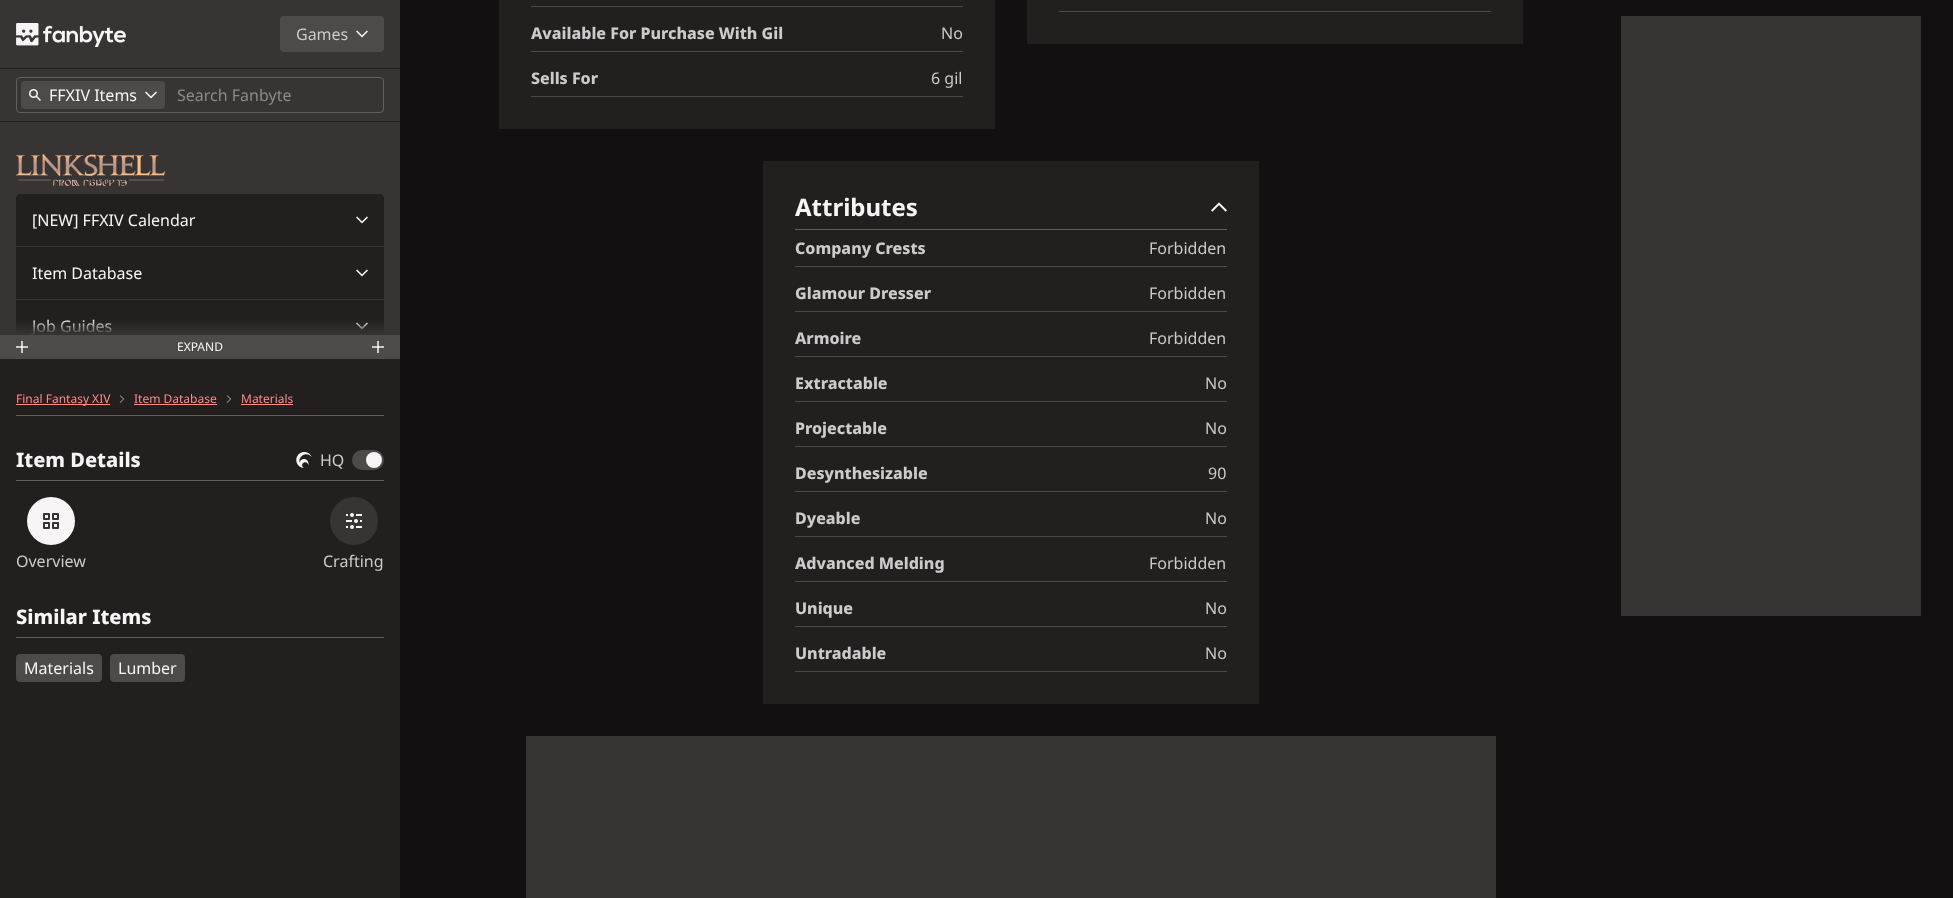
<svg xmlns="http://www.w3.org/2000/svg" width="1953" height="898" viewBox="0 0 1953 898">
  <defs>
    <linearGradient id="g1" gradientUnits="userSpaceOnUse" x1="200" y1="319" x2="200" y2="335"><stop offset="0" stop-color="#383434" stop-opacity="0"/><stop offset="1" stop-color="#383434"/></linearGradient>
  </defs>
  <rect width="100%" height="100%" fill="#121010"/>
  <path d="M0 359h400v539H0z" fill="#231f1f"/>
  <path d="M0 0h400v68H0z" fill="#383434"/>
  <path d="M0 68h400v1H0z" fill="#231f1f"/>
  <image x="16" y="23" width="110" height="24" href="img/1.png"/>
  <rect x="280" y="16" width="104" height="36" rx="4" fill="#4e4a4a"/>
  <image x="356" y="30" width="12" height="8" href="img/2.png"/>
  <path d="M0 69h400v52H0z" fill="#383434"/>
  <path d="M0 121h400v1H0z" fill="#231f1f"/>
  <rect x="16.5" y="77.5" width="367" height="35" rx="3.5" fill="none" stroke="#635f5f"/>
  <rect x="21" y="81" width="144" height="28" rx="4" fill="#4e4a4a"/>
  <image x="29" y="89" width="12" height="12" href="img/3.png"/>
  <image x="145" y="91" width="12" height="8" href="img/2.png"/>
  <path d="M0 122h400v213H0z" fill="#383434"/>
  <image x="16" y="154" width="150" height="32" href="img/4.png"/>
  <path d="M20 194H380C382 194 384 196 384 198V246H16V198C16 196 18 194 20 194Z" fill="#231f1f"/>
  <image x="356" y="216" width="12" height="8" href="img/5.png"/>
  <path d="M16 247h368v52H16z" fill="#231f1f"/>
  <image x="356" y="269" width="12" height="8" href="img/5.png"/>
  <path d="M16 300h368v35H16z" fill="#231f1f"/>
  <image x="356" y="322" width="12" height="8" href="img/5.png"/>
  <path d="M16 415h368v1H16z" fill="#635f5f"/>
  <path d="M16 404h94v1H16z" fill="#ff8a8a"/>
  <image x="119" y="395" width="6" height="8" href="img/7.png"/>
  <path d="M134 404h83v1H134z" fill="#ff8a8a"/>
  <image x="226" y="395" width="6" height="8" href="img/7.png"/>
  <path d="M241 404h52v1H241z" fill="#ff8a8a"/>
  <path d="M16 480h368v1H16z" fill="#635f5f"/>
  <image x="296" y="452" width="16" height="16" href="img/8.png"/>
  <rect x="352" y="450" width="32" height="20" rx="10" fill="#4e4a4a"/>
  <circle cx="374" cy="460" r="8" fill="#f9f4f5"/>
  <circle cx="51" cy="521" r="24" fill="#f9f4f5"/>
  <image x="43" y="513" width="16" height="16" href="img/9.png"/>
  <circle cx="354" cy="521" r="24" fill="#383434"/>
  <image x="346" y="513" width="16" height="16" href="img/10.png"/>
  <path d="M16 637h368v1H16z" fill="#635f5f"/>
  <rect x="16" y="654" width="86" height="28" rx="4" fill="#4e4a4a"/>
  <rect x="110" y="654" width="75" height="28" rx="4" fill="#4e4a4a"/>
  <path d="M499 0h496v129H499z" fill="#231f1f"/>
  <path d="M531 6h432v1H531z" fill="#4e4a4a"/>
  <path d="M531 51h432v1H531z" fill="#4e4a4a"/>
  <path d="M531 96h432v1H531z" fill="#4e4a4a"/>
  <path d="M1027 0h496v44H1027z" fill="#231f1f"/>
  <path d="M1059 11h432v1H1059z" fill="#4e4a4a"/>
  <path d="M763 161h496v543H763z" fill="#231f1f"/>
  <path d="M795 229h432v1H795z" fill="#635f5f"/>
  <image x="1211" y="202" width="16" height="10" href="img/11.png"/>
  <path d="M795 266h432v1H795z" fill="#4e4a4a"/>
  <path d="M795 311h432v1H795z" fill="#4e4a4a"/>
  <path d="M795 356h432v1H795z" fill="#4e4a4a"/>
  <path d="M795 401h432v1H795z" fill="#4e4a4a"/>
  <path d="M795 446h432v1H795z" fill="#4e4a4a"/>
  <path d="M795 491h432v1H795z" fill="#4e4a4a"/>
  <path d="M795 536h432v1H795z" fill="#4e4a4a"/>
  <path d="M795 581h432v1H795z" fill="#4e4a4a"/>
  <path d="M795 626h432v1H795z" fill="#4e4a4a"/>
  <path d="M795 671h432v1H795z" fill="#4e4a4a"/>
  <path d="M526 736h970v162H526z" fill="#383434"/>
  <path d="M1621 16h300v600H1621z" fill="#383434"/>
  <text x="296" y="40" font-family="Noto Sans" font-size="16" fill="#cec9ca">Games</text>
  <text x="49" y="101" font-family="Noto Sans" font-size="16" fill="#f9f4f5">FFXIV Items</text>
  <text x="177" y="101" font-family="Noto Sans" font-size="16" fill="#8e8a8a">Search Fanbyte</text>
  <g font-family="Noto Sans" font-size="16" fill="#f9f4f5">
    <text x="32" y="226">[NEW] FFXIV Calendar</text>
    <text x="32" y="279">Item Database</text>
    <text x="32" y="332">Job Guides</text>
  </g>
  <path d="M16 320h368v15H16z" fill="url(#g1)"/>
  <path d="M0 335h400v24H0z" fill="#4e4a4a"/>
  <image x="16" y="341" width="12" height="12" href="img/6.png"/>
  <text x="177" y="351" font-family="Noto Sans" font-size="12" fill="#f9f4f5">EXPAND</text>
  <image x="372" y="341" width="12" height="12" href="img/6.png"/>
  <g font-family="Noto Sans" font-size="12" fill="#ff8a8a">
    <text x="16" y="403">Final Fantasy XIV</text>
    <text x="134" y="403">Item Database</text>
    <text x="241" y="403">Materials</text>
  </g>
  <text x="16" y="467" font-family="Noto Sans" font-size="20" font-weight="800" fill="#f9f4f5">Item Details</text>
  <g font-family="Noto Sans" font-size="16" fill="#cec9ca">
    <text x="320" y="466">HQ</text>
    <text x="16" y="567">Overview</text>
    <text x="323" y="567">Crafting</text>
  </g>
  <text x="16" y="624" font-family="Noto Sans" font-size="20" font-weight="800" fill="#f9f4f5">Similar Items</text>
  <g font-family="Noto Sans" font-size="16" fill="#f9f4f5">
    <text x="24" y="674">Materials</text>
    <text x="118" y="674">Lumber</text>
  </g>
  <text x="531" y="39" font-family="Noto Sans" font-size="16" font-weight="800" fill="#cec9ca">Available For Purchase With Gil</text>
  <text x="941" y="39" font-family="Noto Sans" font-size="16" fill="#cec9ca">No</text>
  <text x="531" y="84" font-family="Noto Sans" font-size="16" font-weight="800" fill="#cec9ca">Sells For</text>
  <text x="931" y="84" font-family="Noto Sans" font-size="16" fill="#cec9ca">6 gil</text>
  <text x="795" y="216" font-family="Noto Sans" font-size="24" font-weight="bold" fill="#f9f4f5">Attributes</text>
  <text x="795" y="254" font-family="Noto Sans" font-size="16" font-weight="800" fill="#cec9ca">Company Crests</text>
  <text x="1149" y="254" font-family="Noto Sans" font-size="16" fill="#cec9ca">Forbidden</text>
  <text x="795" y="299" font-family="Noto Sans" font-size="16" font-weight="800" fill="#cec9ca">Glamour Dresser</text>
  <text x="1149" y="299" font-family="Noto Sans" font-size="16" fill="#cec9ca">Forbidden</text>
  <text x="795" y="344" font-family="Noto Sans" font-size="16" font-weight="800" fill="#cec9ca">Armoire</text>
  <text x="1149" y="344" font-family="Noto Sans" font-size="16" fill="#cec9ca">Forbidden</text>
  <text x="795" y="389" font-family="Noto Sans" font-size="16" font-weight="800" fill="#cec9ca">Extractable</text>
  <text x="1205" y="389" font-family="Noto Sans" font-size="16" fill="#cec9ca">No</text>
  <text x="795" y="434" font-family="Noto Sans" font-size="16" font-weight="800" fill="#cec9ca">Projectable</text>
  <text x="1205" y="434" font-family="Noto Sans" font-size="16" fill="#cec9ca">No</text>
  <text x="795" y="479" font-family="Noto Sans" font-size="16" font-weight="800" fill="#cec9ca">Desynthesizable</text>
  <text x="1208" y="479" font-family="Noto Sans" font-size="16" fill="#cec9ca">90</text>
  <text x="795" y="524" font-family="Noto Sans" font-size="16" font-weight="800" fill="#cec9ca">Dyeable</text>
  <text x="1205" y="524" font-family="Noto Sans" font-size="16" fill="#cec9ca">No</text>
  <text x="795" y="569" font-family="Noto Sans" font-size="16" font-weight="800" fill="#cec9ca">Advanced Melding</text>
  <text x="1149" y="569" font-family="Noto Sans" font-size="16" fill="#cec9ca">Forbidden</text>
  <text x="795" y="614" font-family="Noto Sans" font-size="16" font-weight="800" fill="#cec9ca">Unique</text>
  <text x="1205" y="614" font-family="Noto Sans" font-size="16" fill="#cec9ca">No</text>
  <text x="795" y="659" font-family="Noto Sans" font-size="16" font-weight="800" fill="#cec9ca">Untradable</text>
  <text x="1205" y="659" font-family="Noto Sans" font-size="16" fill="#cec9ca">No</text>
</svg>
